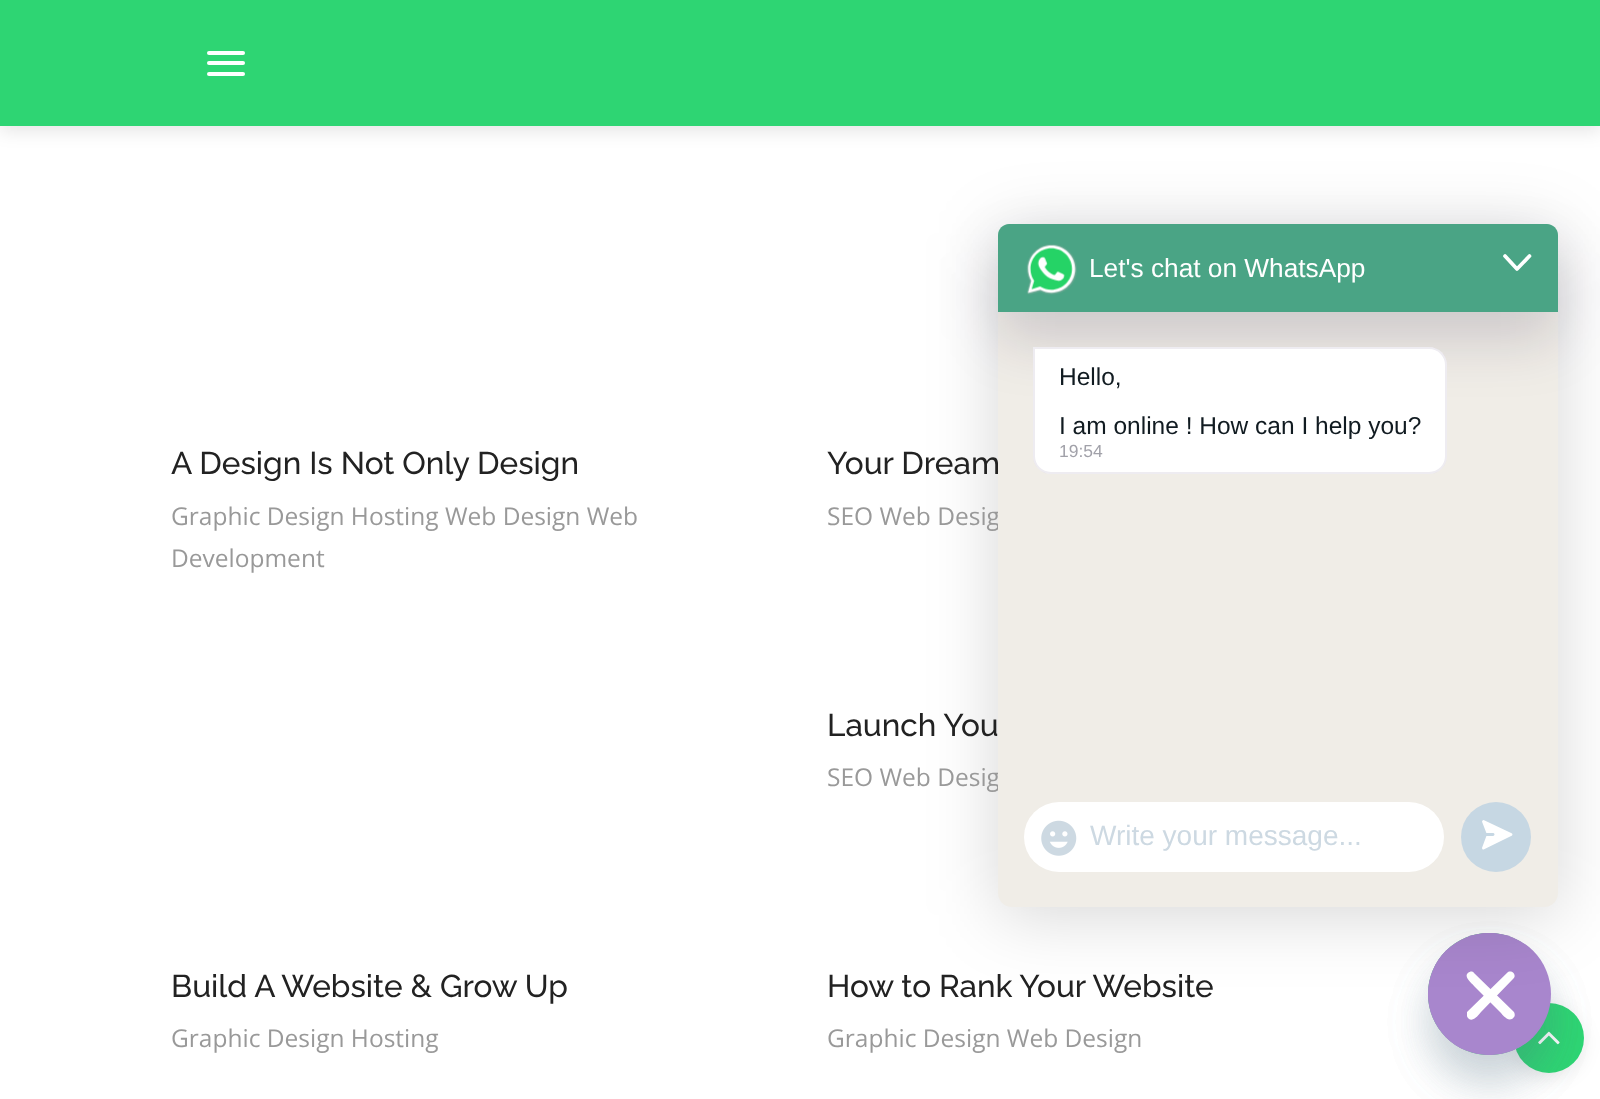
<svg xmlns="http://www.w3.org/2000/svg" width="1600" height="1099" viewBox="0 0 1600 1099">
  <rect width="100%" height="100%" fill="#fff"/>
  <path d="M0 5h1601v126H0z" fill="#0000001a" filter="blur(9px)"/>
  <path d="M0 0h1600v126H0z" fill="#2ed573"/>
  <rect x="207" y="51" width="38" height="4" rx="2" fill="#fff"/>
  <rect x="207" y="61" width="38" height="4" rx="2" fill="#fff"/>
  <rect x="207" y="72" width="38" height="4" rx="2" fill="#fff"/>
  <rect x="1514" y="1008" width="70" height="70" rx="35" fill="#00000014" filter="blur(9px)"/>
  <circle cx="1549" cy="1038" r="35" fill="#2ed573"/>
  <image x="1538" y="1031" width="22" height="14" href="img/1.png"/>
  <rect x="1428" y="961" width="123" height="122" rx="61" fill="#49687e29" filter="blur(21px)"/>
  <image x="1428" y="933" width="100" height="122" href="img/4.png"/>
  <rect x="1428" y="961" width="123" height="122" rx="61" fill="#49687e29" filter="blur(21px)"/>
  <rect x="1428" y="933" width="123" height="122" rx="61" fill="#a886cd"/>
  <circle cx="1489" cy="994" r="61" fill="#a886cd"/>
  <path d="M1474 973L1514 1012C1515 1014 1515 1016 1514 1017C1509 1024 1502 1014 1500 1012L1474 986C1473 984 1463 977 1468 973C1470 971 1473 971 1474 973Z" fill="#fff"/>
  <path d="M1513 979L1481 1012C1479 1014 1474 1022 1469 1019C1468 1018 1467 1017 1467 1016V1012L1508 972C1513 970 1517 976 1513 979Z" fill="#fff"/>
  <rect x="998" y="233" width="560" height="682" rx="11" fill="#00000029" filter="blur(35px)"/>
  <text x="171" y="474" font-family="Raleway" font-size="31.5" font-weight="500" fill="#222">A Design Is Not Only Design</text>
  <g font-family="Open Sans" font-size="24.5" fill="#999">
    <text x="171" y="525">Graphic Design Hosting Web Design Web</text>
    <text x="171" y="567">Development</text>
  </g>
  <text x="827" y="474" font-family="Raleway" font-size="31.5" font-weight="500" fill="#222">Your Dream</text>
  <text x="827" y="525" font-family="Open Sans" font-size="24.5" fill="#999">SEO Web Desig</text>
  <text x="827" y="736" font-family="Raleway" font-size="31.5" font-weight="500" fill="#222">Launch You</text>
  <text x="827" y="786" font-family="Open Sans" font-size="24.5" fill="#999">SEO Web Desig</text>
  <text x="171" y="997" font-family="Raleway" font-size="31.5" font-weight="500" fill="#222">Build A Website &amp; Grow Up</text>
  <text x="171" y="1047" font-family="Open Sans" font-size="24.5" fill="#999">Graphic Design Hosting</text>
  <text x="827" y="997" font-family="Raleway" font-size="31.5" font-weight="500" fill="#222">How to Rank Your Website</text>
  <text x="827" y="1047" font-family="Open Sans" font-size="24.5" fill="#999">Graphic Design Web Design</text>
  <rect x="998" y="224" width="560" height="683" rx="14" fill="#f0ede7"/>
  <rect x="998" y="252" width="560" height="88" rx="11" fill="#1a0e3529" filter="blur(28px)"/>
  <path d="M1009 224H1547C1553 224 1558 229 1558 235V312H998V235C998 229 1003 224 1009 224Z" fill="#4aa485"/>
  <image x="1026" y="244" width="51" height="51" href="img/2.png"/>
  <text x="1089" y="277" font-family="Liberation Sans" font-size="26.25" fill="#fff">Let's chat on WhatsApp</text>
  <path d="M1505 256L1517 269L1529.5 256" fill="none" stroke="#fff" stroke-width="3.7" stroke-linecap="round" stroke-linejoin="round"/>
  <path d="M1033 347H1429C1439 347 1447 355 1447 365V456C1447 466 1439 474 1429 474H1051C1041 474 1033 466 1033 456Z" fill="#fff"/>
  <path d="M1034 348H1429C1438.5 348 1446 355.5 1446 365V456C1446 465.5 1438.5 473 1429 473H1051C1041.5 473 1034 465.5 1034 456Z" fill="none" stroke="#22114714" stroke-width="2"/>
  <g font-family="Liberation Sans" font-size="24.5" fill="#111b21">
    <text x="1059" y="385">Hello,</text>
    <text x="1059" y="434">I am online ! How can I help you?</text>
  </g>
  <text x="1059" y="457" font-family="Liberation Sans" font-size="17.5" fill="#a1a1a9">19:54</text>
  <rect x="1024" y="802" width="420" height="70" rx="35" fill="#fff"/>
  <image x="1041" y="820" width="36" height="36" href="img/3.png"/>
  <text x="1090" y="845" font-family="Liberation Sans" font-size="28" fill="#cdd9e2">Write your message...</text>
  <circle cx="1496" cy="837" r="35" fill="#c6d7e3"/>
  <path d="M1511 834.5L1483.5 848L1488.5 834.5L1483.5 821.5Z" fill="#fff" stroke="#fff" stroke-width="2.9" stroke-linecap="round" stroke-linejoin="round"/>
  <path d="M1493 834.5H1484" fill="none" stroke="#c6d7e3" stroke-width="2.9" stroke-linecap="round" stroke-linejoin="round"/>
</svg>
